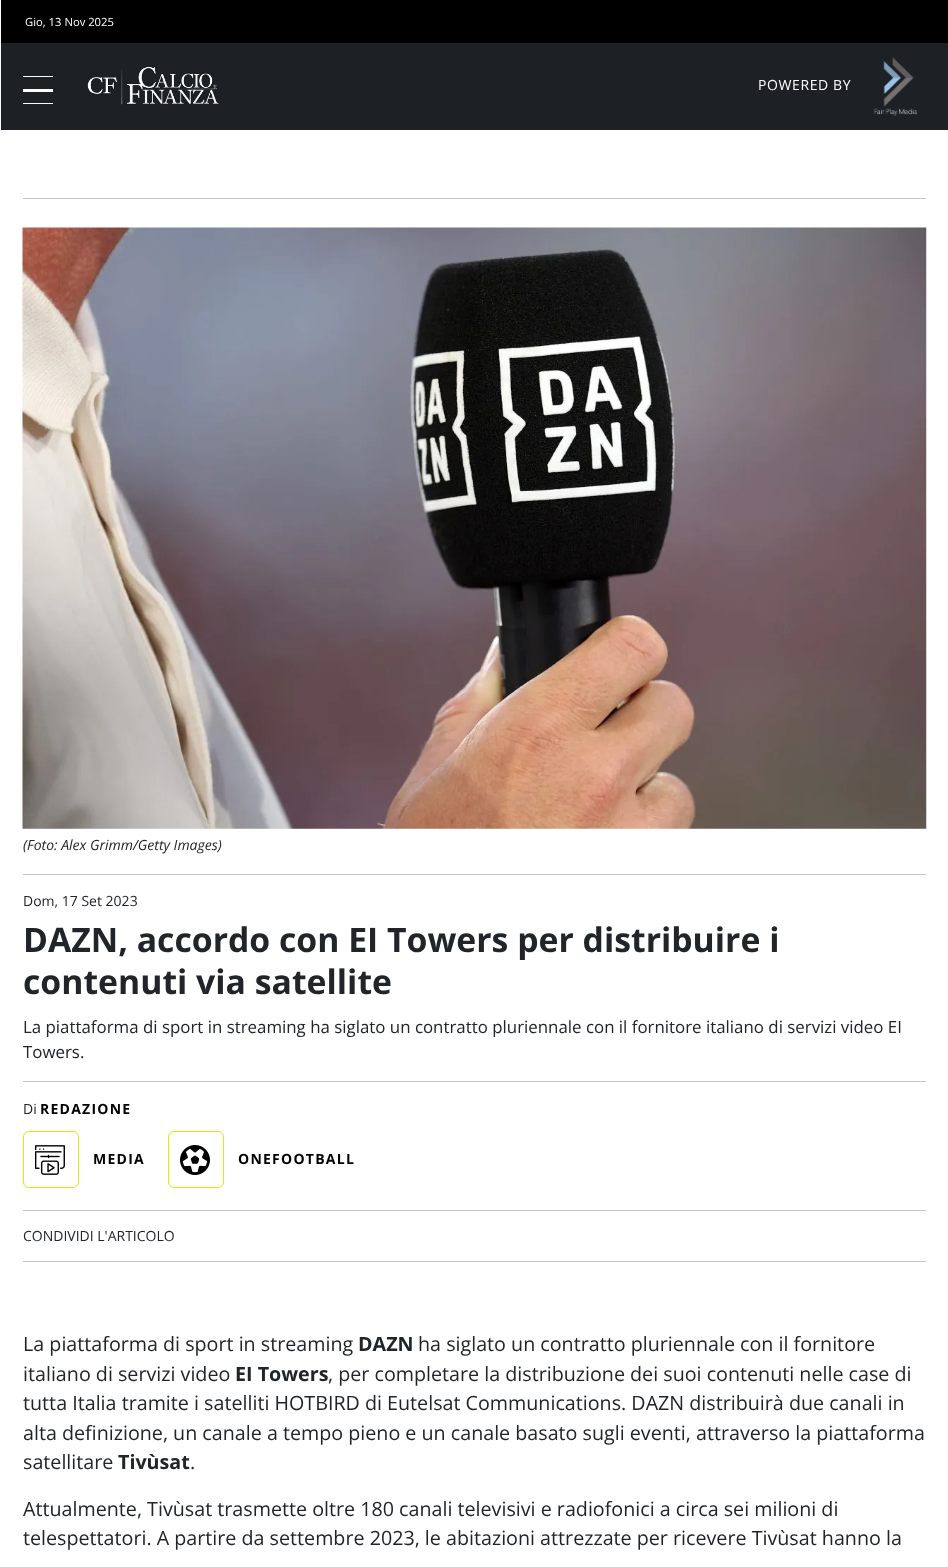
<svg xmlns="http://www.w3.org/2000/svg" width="948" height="1567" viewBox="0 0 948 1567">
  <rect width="100%" height="100%" fill="#fff"/>
  <path d="M1 0h947v43H1z" fill="#000"/>
  <path d="M1 43h947v87H1z" fill="#1d2025"/>
  <path d="M23 76h30v1H23z" fill="#fff"/>
  <path d="M23 89h30v3H23z" fill="#fff"/>
  <path d="M23 103h30v1H23z" fill="#fff"/>
  <image x="87" y="66" width="132" height="39" href="img/1.png"/>
  <image x="873" y="57" width="45" height="59" href="img/2.png"/>
  <path d="M23 198h903v1H23z" fill="#c4c4c4"/>
  <path d="M23 874h903v1H23z" fill="#c4c4c4"/>
  <image x="22" y="227" width="905" height="602" href="img/3.png"/>
  <path d="M23 1081h903v1H23z" fill="#c4c4c4"/>
  <rect x="23.5" y="1131.5" width="55" height="56" rx="5.5" fill="none" stroke="#d8ec0f"/>
  <image x="35" y="1145" width="30" height="30" href="img/4.png"/>
  <rect x="168.5" y="1131.5" width="55" height="56" rx="5.5" fill="none" stroke="#d8ec0f"/>
  <image x="180" y="1145" width="30" height="30" href="img/5.png"/>
  <path d="M23 1210h903v1H23z" fill="#c4c4c4"/>
  <path d="M23 1261h903v1H23z" fill="#c4c4c4"/>
  <text x="25" y="26" font-family="Open Sans" font-size="11.25" fill="#fff">Gio, 13 Nov 2025</text>
  <text x="758" y="90" font-family="Open Sans" font-size="14" letter-spacing="0.6" fill="#fff">POWERED BY</text>
  <text x="23" y="850" font-family="Open Sans" font-size="14" font-style="italic" fill="#212529">(Foto: Alex Grimm/Getty Images)</text>
  <text x="23" y="906" font-family="Open Sans" font-size="14" fill="#212529">Dom, 17 Set 2023</text>
  <g font-family="Open Sans" font-size="33.75" font-weight="bold" fill="#212529">
    <text x="23" y="952">DAZN, accordo con EI Towers per distribuire i</text>
    <text x="23" y="994">contenuti via satellite</text>
  </g>
  <g font-family="Open Sans" font-size="16.88" fill="#212529">
    <text x="23" y="1033">La piattaforma di sport in streaming ha siglato un contratto pluriennale con il fornitore italiano di servizi video EI</text>
    <text x="23" y="1058">Towers.</text>
  </g>
  <text x="23" y="1114" font-family="Open Sans" font-size="14" fill="#212529">Di</text>
  <g font-family="Open Sans" font-size="14" font-weight="bold" letter-spacing="1.25" fill="#000">
    <text x="40" y="1114">REDAZIONE</text>
    <text x="93" y="1164">MEDIA</text>
    <text x="238" y="1164">ONEFOOTBALL</text>
  </g>
  <text x="23" y="1241" font-family="Open Sans" font-size="14" fill="#212529">CONDIVIDI L'ARTICOLO</text>
  <text x="23" y="1351" font-family="Open Sans" font-size="19.7" fill="#212529">La piattaforma di sport in streaming</text>
  <text x="358" y="1351" font-family="Open Sans" font-size="19.7" font-weight="bold" fill="#212529">DAZN</text>
  <g font-family="Open Sans" font-size="19.7" fill="#212529">
    <text x="418" y="1351">ha siglato un contratto pluriennale con il fornitore</text>
    <text x="23" y="1381">italiano di servizi video</text>
  </g>
  <text x="235" y="1381" font-family="Open Sans" font-size="19.7" font-weight="bold" fill="#212529">EI Towers</text>
  <g font-family="Open Sans" font-size="19.7" fill="#212529">
    <text x="328" y="1381">, per completare la distribuzione dei suoi contenuti nelle case di</text>
    <text x="23" y="1410">tutta Italia tramite i satelliti HOTBIRD di Eutelsat Communications. DAZN distribuirà due canali in</text>
    <text x="23" y="1440">alta definizione, un canale a tempo pieno e un canale basato sugli eventi, attraverso la piattaforma</text>
    <text x="23" y="1469">satellitare</text>
  </g>
  <text x="118" y="1469" font-family="Open Sans" font-size="19.7" font-weight="bold" fill="#212529">Tivùsat</text>
  <g font-family="Open Sans" font-size="19.7" fill="#212529">
    <text x="190" y="1469">.</text>
    <text x="23" y="1516">Attualmente, Tivùsat trasmette oltre 180 canali televisivi e radiofonici a circa sei milioni di</text>
    <text x="23" y="1545">telespettatori. A partire da settembre 2023, le abitazioni attrezzate per ricevere Tivùsat hanno la</text>
  </g>
</svg>
